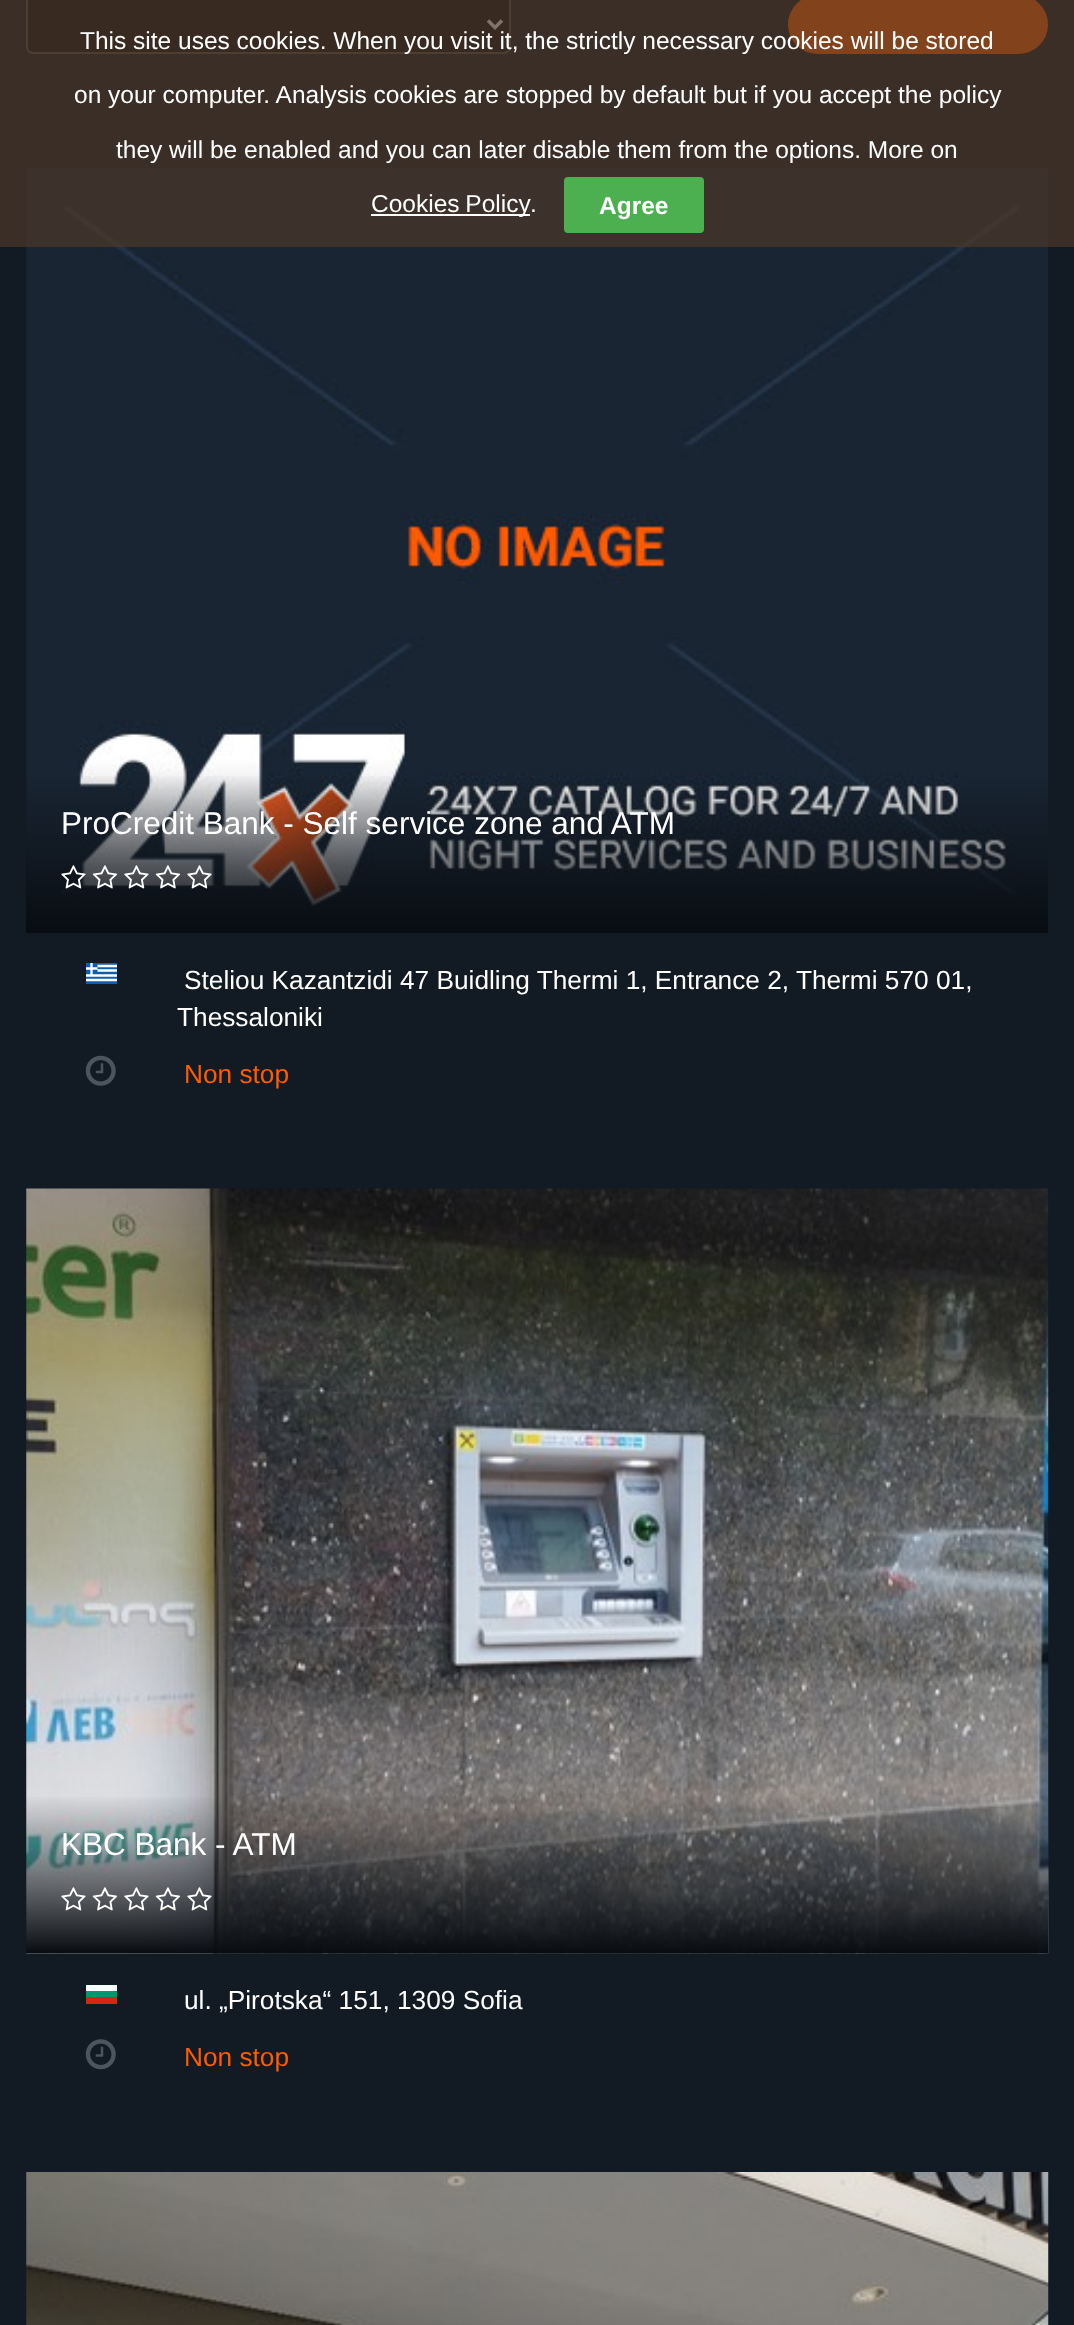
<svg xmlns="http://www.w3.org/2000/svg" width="1074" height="2325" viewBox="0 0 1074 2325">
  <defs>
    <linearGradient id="g1" gradientUnits="userSpaceOnUse" x1="537" y1="773" x2="537" y2="933"><stop offset="0" stop-color="#090d12" stop-opacity="0"/><stop offset="1" stop-color="#090d12"/></linearGradient>
    <clipPath id="clip1"><path d="M86 963h31v21H86z"/></clipPath>
    <linearGradient id="g2" gradientUnits="userSpaceOnUse" x1="537" y1="1794" x2="537" y2="1953"><stop offset="0" stop-color="#090d12" stop-opacity="0"/><stop offset="1" stop-color="#090d12"/></linearGradient>
  </defs>
  <rect width="100%" height="100%" fill="#121a23"/>
  <rect x="27" y="-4" width="483" height="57" rx="6" fill="#090d12" stroke="#4d4d4d" stroke-width="2"/>
  <path d="M488 20.5L495 27.5L502 20.5" fill="none" stroke="#fff" stroke-width="3.5"/>
  <rect x="789" y="-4" width="258" height="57" rx="28.5" fill="#ff5b00" stroke="#ff5b00" stroke-width="2"/>
  <image x="26" y="168" width="1022" height="764" href="img/1.png"/>
  <path d="M0 0h1074v247H0z" fill="#4d3828b3"/>
  <path d="M371 214h159v2H371z" fill="#fff"/>
  <rect x="564" y="177" width="140" height="56" rx="4" fill="#4caf50"/>
  <path d="M26 776h1022v157H26z" fill="url(#g1)"/>
  <image x="61" y="865" width="25" height="24" href="img/2.png"/>
  <image x="92" y="865" width="26" height="24" href="img/3.png"/>
  <image x="124" y="865" width="25" height="24" href="img/4.png"/>
  <image x="155" y="865" width="26" height="24" href="img/5.png"/>
  <image x="187" y="865" width="25" height="24" href="img/6.png"/>
  <path d="M86 963h31v21H86z" fill="#0d5eaf"/>
  <g clip-path="url(#clip1)">
    <path d="M91.5 962.5V975.5M86 968.5H97.5M97.5 966H117M97.5 970.5H117M86 975.5H117M86 980H117" fill="none" stroke="#fff" stroke-width="2.3"/>
  </g>
  <image x="85" y="1055" width="31" height="31" href="img/7.png"/>
  <image x="26" y="1188" width="1023" height="766" href="img/8.png"/>
  <path d="M26 1797h1022v156H26z" fill="url(#g2)"/>
  <image x="61" y="1887" width="25" height="24" href="img/9.png"/>
  <image x="92" y="1887" width="26" height="24" href="img/10.png"/>
  <image x="124" y="1887" width="25" height="24" href="img/11.png"/>
  <image x="155" y="1887" width="26" height="24" href="img/12.png"/>
  <image x="187" y="1887" width="25" height="24" href="img/13.png"/>
  <path d="M86 1985h31v6H86z" fill="#fff"/>
  <path d="M86 1991h31v6H86z" fill="#00966e"/>
  <path d="M86 1997h31v7H86z" fill="#d62612"/>
  <image x="85" y="2039" width="31" height="31" href="img/14.png"/>
  <image x="26" y="2172" width="1023" height="153" href="img/15.png"/>
  <g font-family="Liberation Sans" font-size="24.5" fill="#fff">
    <text x="80" y="49">This site uses cookies. When you visit it, the strictly necessary cookies will be stored</text>
    <text x="74" y="103">on your computer. Analysis cookies are stopped by default but if you accept the policy</text>
    <text x="116" y="158">they will be enabled and you can later disable them from the options. More on</text>
    <text x="371" y="212" word-spacing="-1">Cookies Policy</text>
    <text x="530" y="212">.</text>
  </g>
  <text x="599" y="214" font-family="Liberation Sans" font-size="24.5" font-weight="bold" fill="#fff">Agree</text>
  <text x="61" y="834" font-family="Liberation Sans" font-size="31.5" fill="#fff">ProCredit Bank - Self service zone and ATM</text>
  <g font-family="Liberation Sans" font-size="26.25" fill="#fff">
    <text x="184" y="989">Steliou Kazantzidi 47 Buidling Thermi 1, Entrance 2, Thermi 570 01,</text>
    <text x="177" y="1026">Thessaloniki</text>
  </g>
  <text x="184" y="1083" font-family="Liberation Sans" font-size="26.25" fill="#ff5b00">Non stop</text>
  <text x="61" y="1855" font-family="Liberation Sans" font-size="31.5" fill="#fff">KBC Bank - ATM</text>
  <text x="184" y="2009" font-family="Liberation Sans" font-size="26.25" fill="#fff">ul. „Pirotska“ 151, 1309 Sofia</text>
  <text x="184" y="2066" font-family="Liberation Sans" font-size="26.25" fill="#ff5b00">Non stop</text>
</svg>
